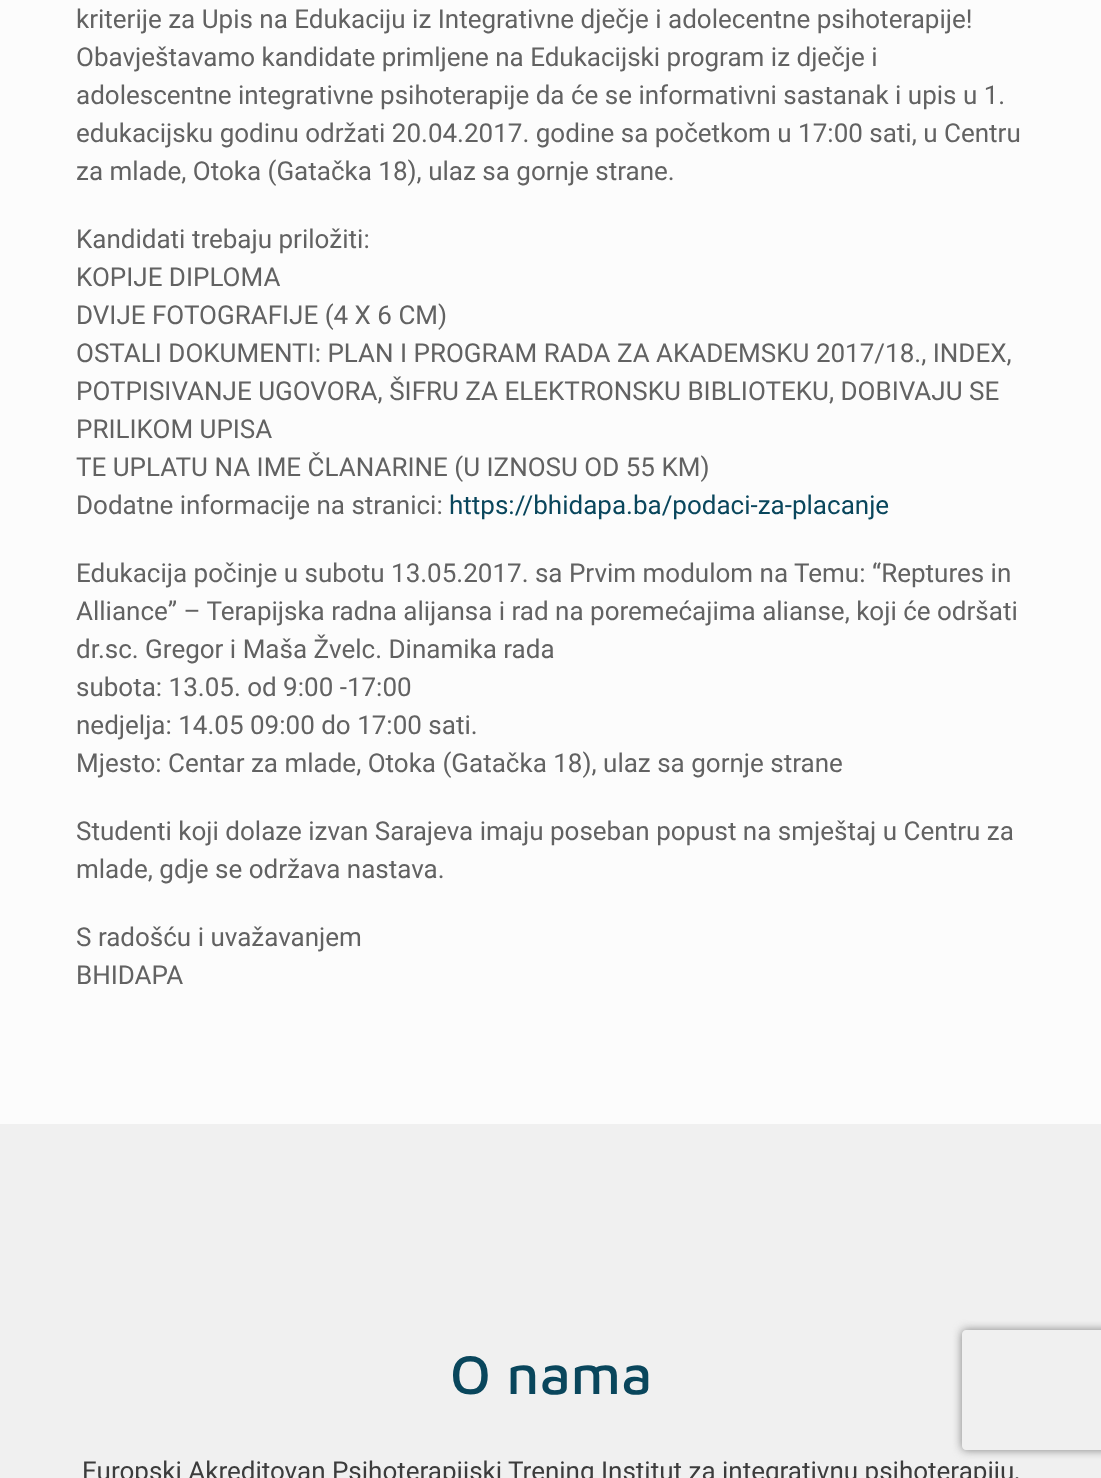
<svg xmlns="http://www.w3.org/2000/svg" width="1101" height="1478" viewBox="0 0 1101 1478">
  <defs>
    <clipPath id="clip1"><path d="M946 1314H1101V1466H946ZM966 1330H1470C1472 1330 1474 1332 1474 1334V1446C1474 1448 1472 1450 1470 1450H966C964 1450 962 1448 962 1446V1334C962 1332 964 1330 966 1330Z" clip-rule="evenodd"/></clipPath>
  </defs>
  <rect width="100%" height="100%" fill="#fcfcfc"/>
  <path d="M0 1124h1101v354H0z" fill="#f0f0f0"/>
  <g clip-path="url(#clip1)">
    <rect x="962" y="1330" width="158" height="120" rx="4" fill="#808080" filter="blur(5px)"/>
  </g>
  <g font-family="Roboto" font-size="26" fill="#626262">
    <text x="76" y="28">kriterije za Upis na Edukaciju iz Integrativne dječje i adolecentne psihoterapije!</text>
    <text x="76" y="66">Obavještavamo kandidate primljene na Edukacijski program iz dječje i</text>
    <text x="76" y="104">adolescentne integrativne psihoterapije da će se informativni sastanak i upis u 1.</text>
    <text x="76" y="142">edukacijsku godinu održati 20.04.2017. godine sa početkom u 17:00 sati, u Centru</text>
    <text x="76" y="180">za mlade, Otoka (Gatačka 18), ulaz sa gornje strane.</text>
    <text x="76" y="248">Kandidati trebaju priložiti:</text>
    <text x="76" y="286">KOPIJE DIPLOMA</text>
    <text x="76" y="324">DVIJE FOTOGRAFIJE (4 X 6 CM)</text>
    <text x="76" y="362">OSTALI DOKUMENTI: PLAN I PROGRAM RADA ZA AKADEMSKU 2017/18., INDEX,</text>
    <text x="76" y="400">POTPISIVANJE UGOVORA, ŠIFRU ZA ELEKTRONSKU BIBLIOTEKU, DOBIVAJU SE</text>
    <text x="76" y="438">PRILIKOM UPISA</text>
    <text x="76" y="476">TE UPLATU NA IME ČLANARINE (U IZNOSU OD 55 KM)</text>
    <text x="76" y="514">Dodatne informacije na stranici:</text>
  </g>
  <text x="449" y="514" font-family="Roboto" font-size="26" fill="#09465c">https://bhidapa.ba/podaci-za-placanje</text>
  <g font-family="Roboto" font-size="26" fill="#626262">
    <text x="76" y="582">Edukacija počinje u subotu 13.05.2017. sa Prvim modulom na Temu: “Reptures in</text>
    <text x="76" y="620">Alliance” – Terapijska radna alijansa i rad na poremećajima alianse, koji će odršati</text>
    <text x="76" y="658">dr.sc. Gregor i Maša Žvelc. Dinamika rada</text>
    <text x="76" y="696">subota: 13.05. od 9:00 -17:00</text>
    <text x="76" y="734">nedjelja: 14.05 09:00 do 17:00 sati.</text>
    <text x="76" y="772">Mjesto: Centar za mlade, Otoka (Gatačka 18), ulaz sa gornje strane</text>
    <text x="76" y="840">Studenti koji dolaze izvan Sarajeva imaju poseban popust na smještaj u Centru za</text>
    <text x="76" y="878">mlade, gdje se održava nastava.</text>
    <text x="76" y="946">S radošću i uvažavanjem</text>
    <text x="76" y="984">BHIDAPA</text>
  </g>
  <text x="450" y="1394" font-family="Maven Pro" font-size="56" font-weight="500" fill="#09465c">O nama</text>
  <text x="82" y="1480" font-family="Roboto" font-size="26" fill="#3c3c3c">Europski Akreditovan Psihoterapijski Trening Institut za integrativnu psihoterapiju,</text>
</svg>
